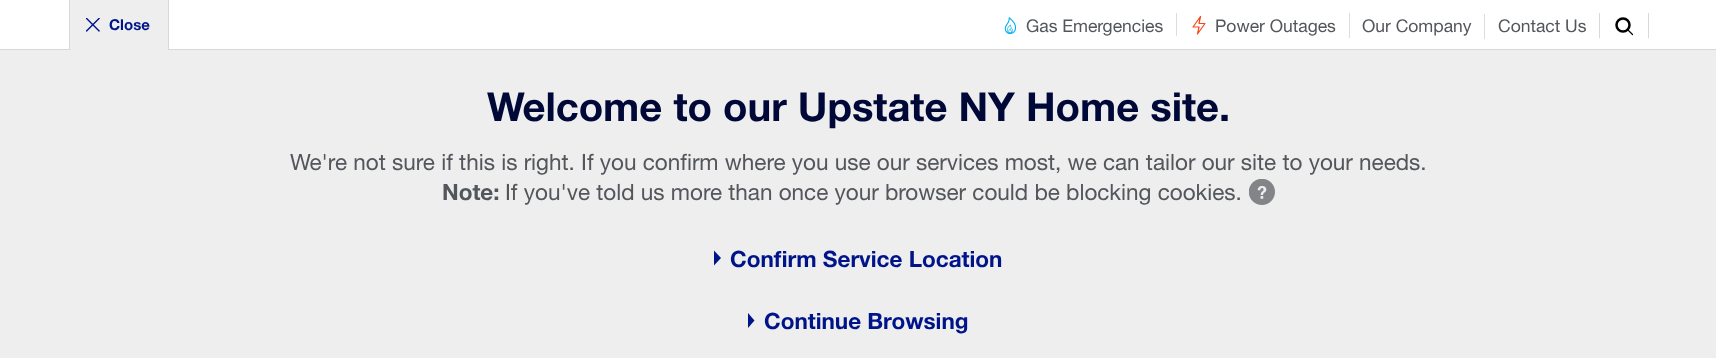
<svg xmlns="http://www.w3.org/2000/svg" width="1716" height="358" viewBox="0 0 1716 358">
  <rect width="100%" height="100%" fill="#fff"/>
  <path d="M0 50h1716v308H0z" fill="#eeeeef"/>
  <path d="M0 49h1716v1H0z" fill="#d8d8d8"/>
  <path d="M70 0h98v50H70z" fill="#eeeeef"/>
  <path d="M168 0h1v50H168z" fill="#d8d8d8"/>
  <path d="M69 0h1v50H69z" fill="#d8d8d8"/>
  <image x="86" y="18" width="14" height="14" href="img/1.png"/>
  <image x="1249" y="179" width="26" height="26" href="img/2.png"/>
  <path d="M714 250.5L721 258L714 265.5Z" fill="#00148a"/>
  <path d="M748 313L754.5 320.5L748 328Z" fill="#00148a"/>
  <path d="M1176 13h1v23H1176z" fill="#ddddde"/>
  <image x="1004" y="17" width="13" height="17" href="img/3.png"/>
  <path d="M1349 13h1v25H1349z" fill="#ddddde"/>
  <path d="M1205 23.5L1197.5 34L1199 27H1193L1200.5 16.5L1199 23.5Z" fill="none" stroke="#fa4616" stroke-width="1.2" stroke-linecap="round" stroke-linejoin="round"/>
  <path d="M1484 14h1v25H1484z" fill="#ddddde"/>
  <path d="M1648 13h1v25H1648z" fill="#d8d8d8"/>
  <path d="M1599 13h1v25H1599z" fill="#d8d8d8"/>
  <circle cx="1623" cy="25" r="6.5" fill="none" stroke="#000" stroke-width="2.5"/>
  <path d="M1627.5 29.5L1632.5 34.5" fill="none" stroke="#000" stroke-width="1.2" stroke-linecap="round" stroke-linejoin="round"/>
  <text x="109" y="30" font-family="Helvetica Neue" font-size="15" font-weight="bold" fill="#00148a">Close</text>
  <text x="487" y="121" font-family="Helvetica Neue" font-size="40" font-weight="bold" fill="#000838">Welcome to our Upstate NY Home site.</text>
  <text x="290" y="170" font-family="Helvetica Neue" font-size="22.5" fill="#53565a">We're not sure if this is right. If you confirm where you use our services most, we can tailor our site to your needs.</text>
  <text x="442" y="200" font-family="Helvetica Neue" font-size="22.5" font-weight="bold" fill="#53565a">Note:</text>
  <text x="505" y="200" font-family="Helvetica Neue" font-size="22.5" fill="#53565a">If you've told us more than once your browser could be blocking cookies.</text>
  <g font-family="Helvetica Neue" font-size="22.5" font-weight="bold" fill="#00148a">
    <text x="730" y="267">Confirm Service Location</text>
    <text x="764" y="329">Continue Browsing</text>
  </g>
  <g font-family="Helvetica Neue" font-size="17.5" fill="#53565a">
    <text x="1026" y="32">Gas Emergencies</text>
    <text x="1215" y="32">Power Outages</text>
    <text x="1362" y="32">Our Company</text>
    <text x="1498" y="32">Contact Us</text>
  </g>
</svg>
